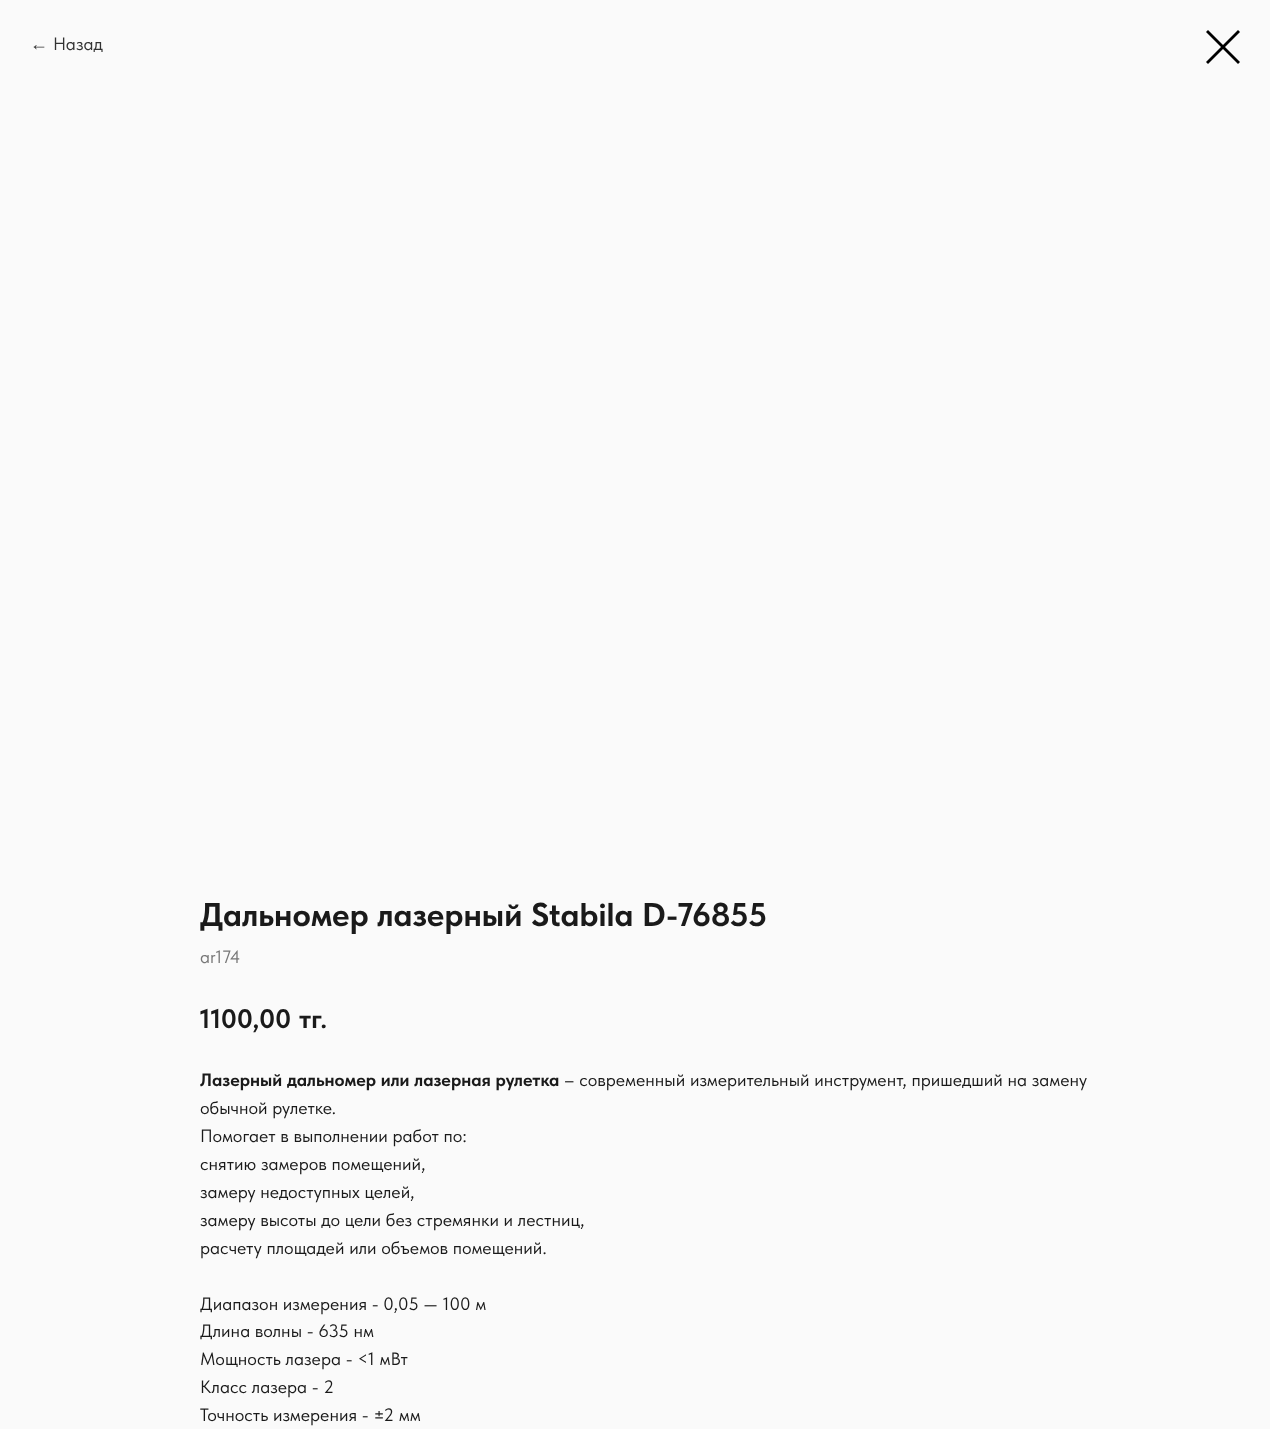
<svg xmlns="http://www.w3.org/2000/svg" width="1270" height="1429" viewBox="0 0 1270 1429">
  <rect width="100%" height="100%" fill="#fafafa"/>
  <path d="M1206 32L1208 30L1240 62L1238 64Z" fill="#000" fill-rule="evenodd"/>
  <path d="M1238 30L1240 32L1208 64L1206 62Z" fill="#000" fill-rule="evenodd"/>
  <text x="30" y="50" font-family="Liberation Sans" font-size="18" fill="#323232">←</text>
  <text x="53" y="50" font-family="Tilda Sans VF" font-size="18" fill="#323232">Назад</text>
  <text x="200" y="926" font-family="Tilda Sans VF" font-size="33" font-weight="bold" fill="#1a1a1a">Дальномер лазерный Stabila D-76855</text>
  <text x="200" y="963" font-family="Tilda Sans VF" font-size="18" fill="#777">ar174</text>
  <g font-family="Tilda Sans VF" font-size="27" font-weight="bold" fill="#1a1a1a">
    <text x="200" y="1028">1100,00</text>
    <text x="299" y="1028">тг.</text>
  </g>
  <text x="200" y="1086" font-family="Tilda Sans VF" font-size="18" font-weight="bold" fill="#1a1a1a">Лазерный дальномер или лазерная рулетка</text>
  <g font-family="Tilda Sans VF" font-size="18" fill="#1a1a1a">
    <text x="564" y="1086">– современный измерительный инструмент, пришедший на замену</text>
    <text x="200" y="1114">обычной рулетке.</text>
    <text x="200" y="1142">Помогает в выполнении работ по:</text>
    <text x="200" y="1170">снятию замеров помещений,</text>
    <text x="200" y="1198">замеру недоступных целей,</text>
    <text x="200" y="1226">замеру высоты до цели без стремянки и лестниц,</text>
    <text x="200" y="1254">расчету площадей или объемов помещений.</text>
    <text x="200" y="1310">Диапазон измерения - 0,05 — 100 м</text>
    <text x="200" y="1337">Длина волны - 635 нм</text>
    <text x="200" y="1365">Мощность лазера - &lt;1 мВт</text>
    <text x="200" y="1393">Класс лазера - 2</text>
    <text x="200" y="1421">Точность измерения - ±2 мм</text>
  </g>
</svg>
